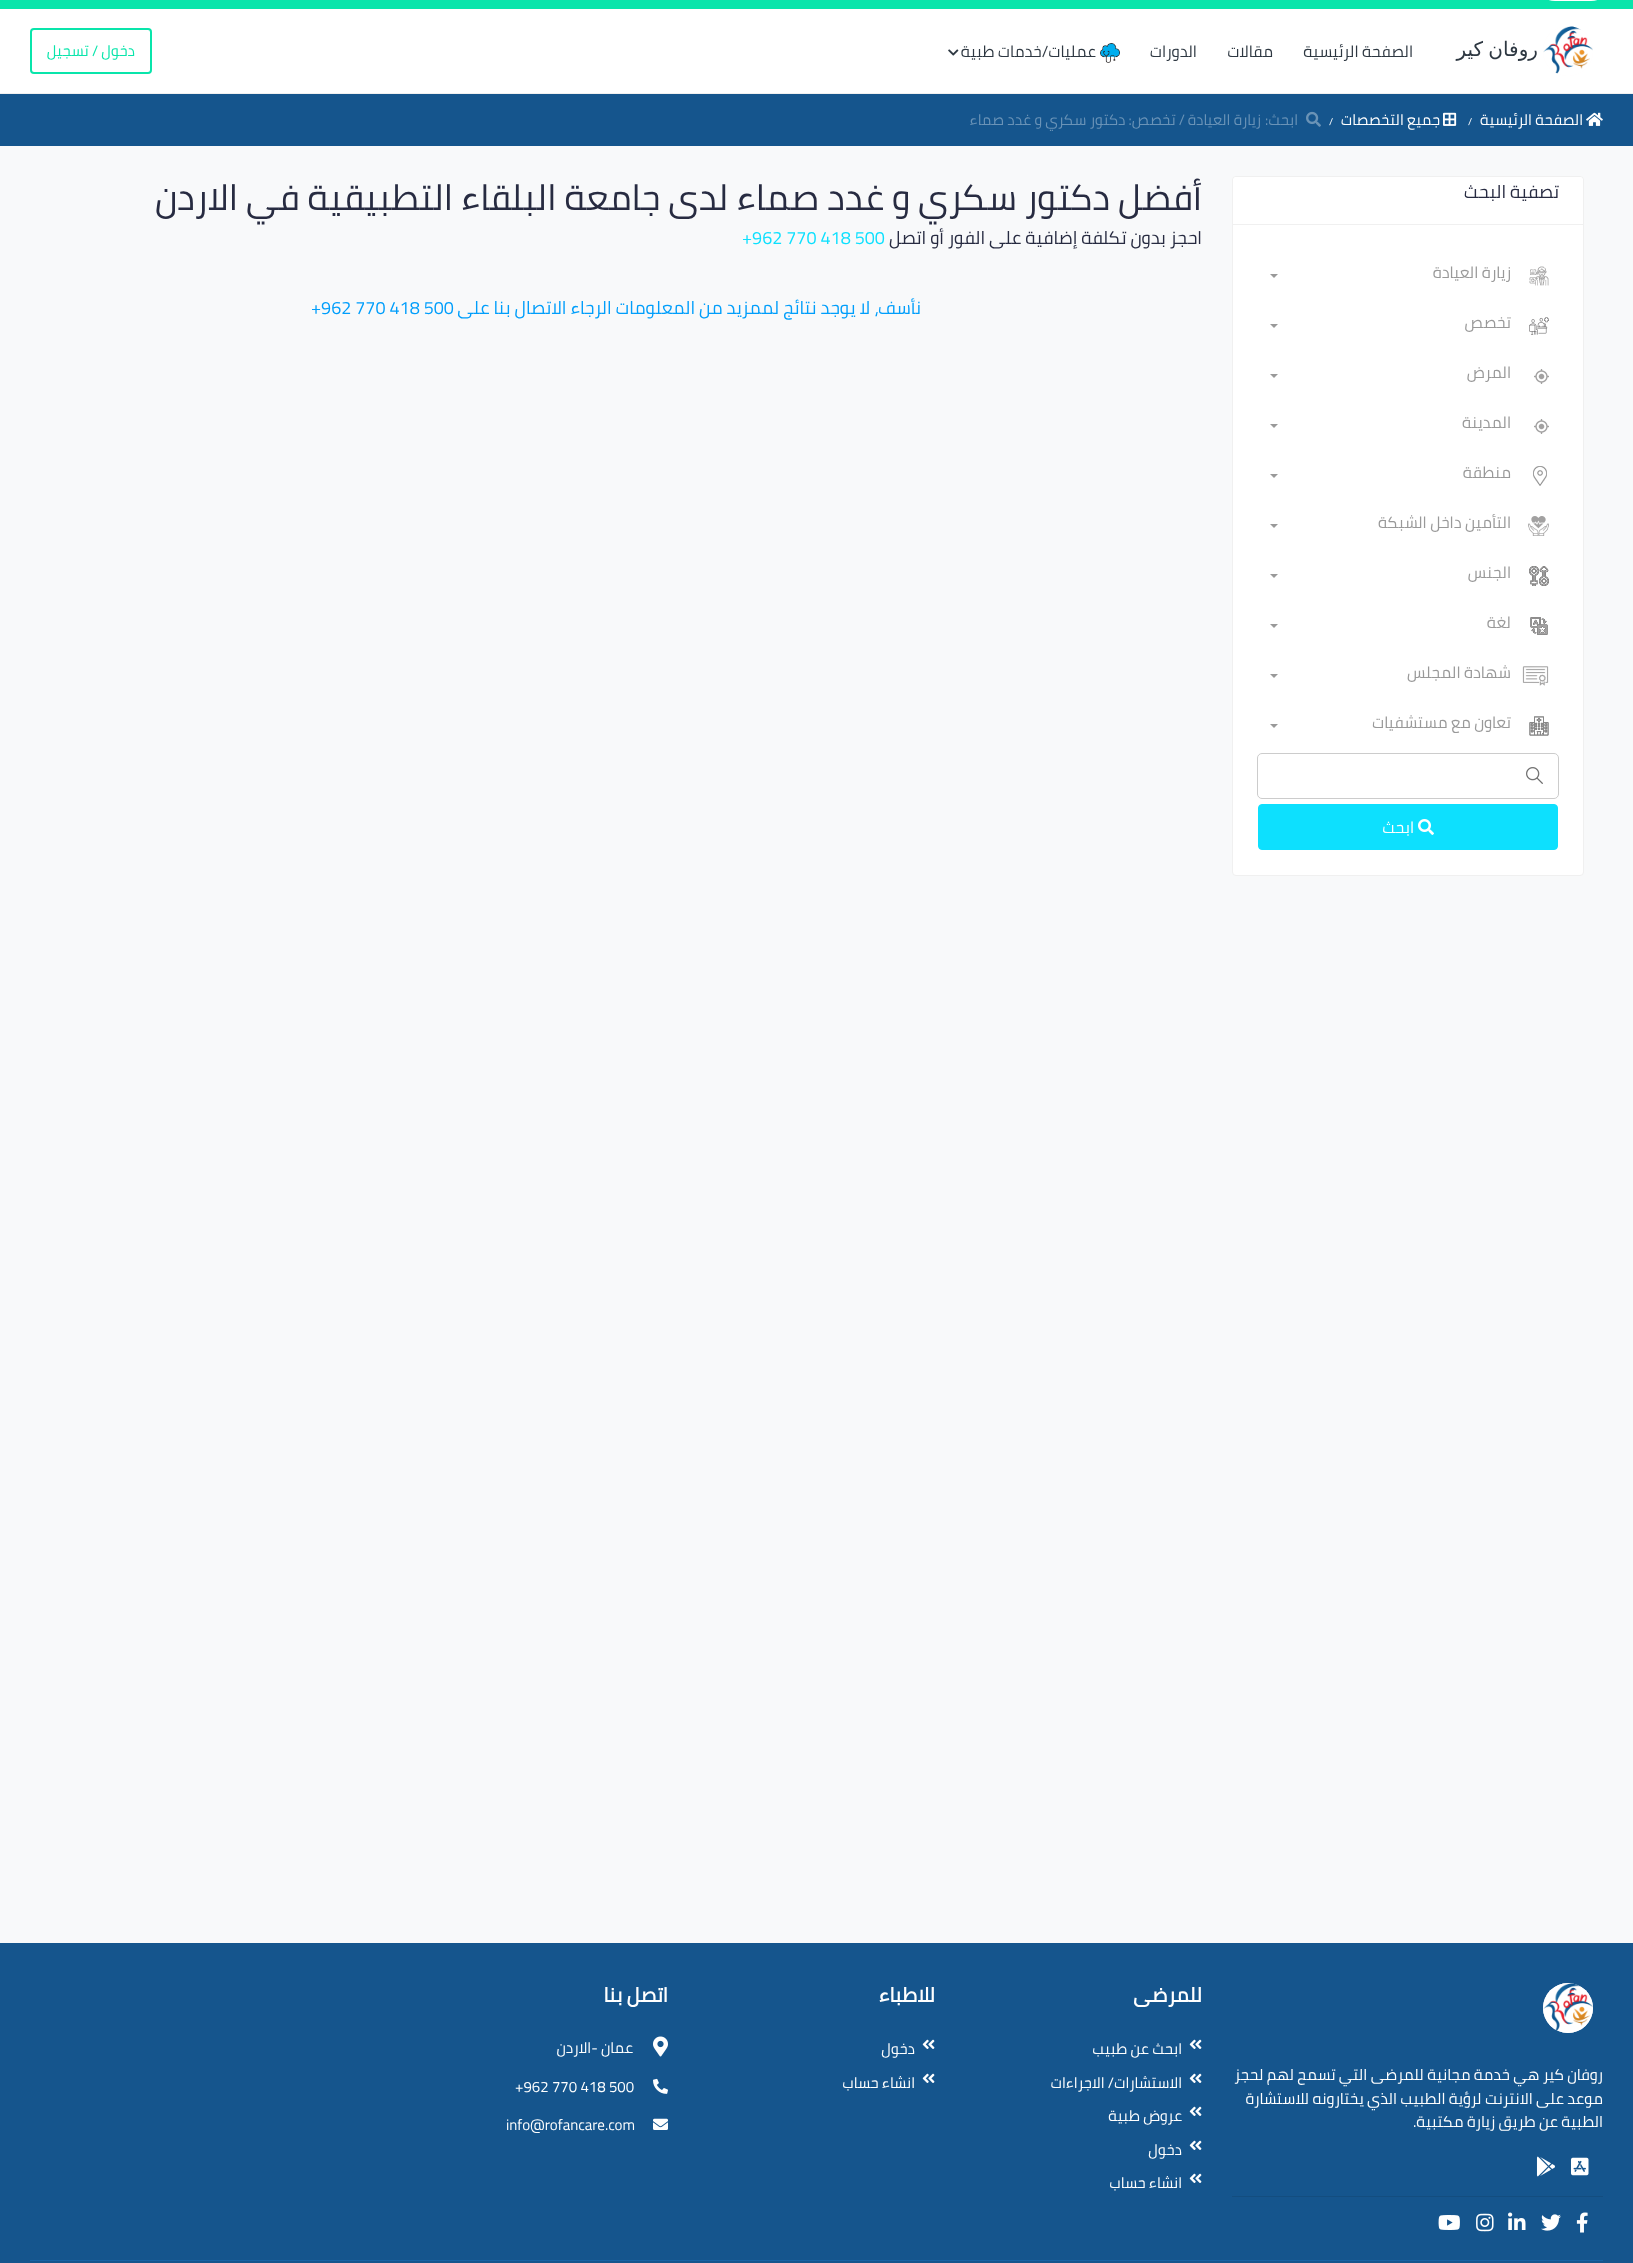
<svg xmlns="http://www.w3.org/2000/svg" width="1633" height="2263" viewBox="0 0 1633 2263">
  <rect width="100%" height="100%" fill="#f8f9fa"/>
  <path d="M0 0h1633v9H0z" fill="#09e5ab"/>
  <rect x="1543" y="-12" width="60" height="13" rx="12" fill="#fff"/>
  <path d="M0 9h1633v84H0z" fill="#fff"/>
  <path d="M0 93h1633v1H0z" fill="#f0f0f0"/>
  <circle cx="1568" cy="51" r="25" fill="#fffafa"/>
  <image x="1543" y="26" width="50" height="50" href="img/1.png"/>
  <image x="1100" y="43" width="20" height="20" href="img/2.png"/>
  <image x="948" y="49" width="11" height="7" href="img/3.png"/>
  <rect x="31" y="29" width="120" height="44" rx="3" fill="none" stroke="#09e5ab" stroke-width="2"/>
  <path d="M0 94h1633v52H0z" fill="#15558d"/>
  <image x="1586" y="112" width="17" height="14" href="img/4.png"/>
  <image x="1443" y="112" width="14" height="14" href="img/5.png"/>
  <image x="1306" y="111" width="15" height="16" href="img/6.png"/>
  <rect x="1232.5" y="176.5" width="351" height="699" rx="3.5" fill="#fff" stroke="#f0f0f0"/>
  <path d="M1236 177H1580C1581.5 177 1583 178.5 1583 180V225H1233V180C1233 178.5 1234.5 177 1236 177Z" fill="#fff"/>
  <path d="M1233 224h350v1H1233z" fill="#f0f0f0"/>
  <image x="1529" y="266" width="20" height="20" href="img/7.png"/>
  <path d="M1270 274H1278L1274 278Z" fill="#999"/>
  <image x="1529" y="317" width="20" height="18" href="img/8.png"/>
  <path d="M1270 324H1278L1274 328Z" fill="#999"/>
  <image x="1534" y="369" width="15" height="15" href="img/9.png"/>
  <path d="M1270 374H1278L1274 378Z" fill="#999"/>
  <image x="1534" y="419" width="15" height="15" href="img/9.png"/>
  <path d="M1270 424H1278L1274 428Z" fill="#999"/>
  <image x="1533" y="466" width="14" height="20" href="img/10.png"/>
  <path d="M1270 474H1278L1274 478Z" fill="#999"/>
  <image x="1528" y="516" width="21" height="20" href="img/11.png"/>
  <path d="M1270 524H1278L1274 528Z" fill="#999"/>
  <image x="1529" y="566" width="20" height="20" href="img/12.png"/>
  <path d="M1270 574H1278L1274 578Z" fill="#999"/>
  <image x="1530" y="617" width="18" height="18" href="img/13.png"/>
  <path d="M1270 624H1278L1274 628Z" fill="#999"/>
  <image x="1522" y="666" width="27" height="20" href="img/14.png"/>
  <path d="M1270 674H1278L1274 678Z" fill="#999"/>
  <image x="1529" y="716" width="20" height="20" href="img/15.png"/>
  <path d="M1270 724H1278L1274 728Z" fill="#999"/>
  <image x="1526" y="767" width="17" height="17" href="img/16.png"/>
  <rect x="1257.5" y="753.5" width="301" height="45" rx="4.5" fill="none" stroke="#ccc"/>
  <rect x="1258.5" y="804.5" width="299" height="45" rx="3.5" fill="#0de0fe" stroke="#0de0fe"/>
  <image x="1418" y="819" width="16" height="16" href="img/17.png"/>
  <path d="M0 1943h1633v320H0z" fill="#15558d"/>
  <circle cx="1568" cy="2008" r="25" fill="#fffafa"/>
  <image x="1543" y="1983" width="50" height="50" href="img/18.png"/>
  <image x="1571" y="2157" width="18" height="19" href="img/19.png"/>
  <image x="1536" y="2156" width="19" height="21" href="img/20.png"/>
  <path d="M1232 2196h371v1H1232z" fill="#134d7f"/>
  <image x="1576" y="2212" width="12" height="21" href="img/21.png"/>
  <image x="1541" y="2214" width="20" height="17" href="img/22.png"/>
  <image x="1508" y="2212" width="18" height="18" href="img/23.png"/>
  <image x="1476" y="2213" width="18" height="19" href="img/24.png"/>
  <image x="1438" y="2215" width="22" height="15" href="img/25.png"/>
  <image x="1189" y="2039" width="13" height="10" href="img/26.png"/>
  <image x="1189" y="2073" width="13" height="10" href="img/26.png"/>
  <image x="1189" y="2106" width="13" height="10" href="img/26.png"/>
  <image x="1189" y="2140" width="13" height="10" href="img/26.png"/>
  <image x="1189" y="2173" width="13" height="10" href="img/26.png"/>
  <image x="922" y="2039" width="13" height="10" href="img/26.png"/>
  <image x="922" y="2073" width="13" height="10" href="img/26.png"/>
  <image x="653" y="2036" width="15" height="21" href="img/27.png"/>
  <image x="653" y="2078" width="15" height="16" href="img/28.png"/>
  <image x="653" y="2118" width="15" height="12" href="img/29.png"/>
  <path d="M30 2260h1573v1H30z" fill="#1663a6"/>
  <text x="1538" y="56" word-spacing="-1" font-family="DejaVu Sans" font-size="20" direction="rtl" fill="#2e3842">روفان كير</text>
  <g font-family="Cairo" font-size="16" direction="rtl" fill="#2e3842">
    <text x="1413" y="57">الصفحة الرئيسية</text>
    <text x="1273" y="57">مقالات</text>
    <text x="1197" y="57">الدورات</text>
    <text x="1096" y="57">عمليات/خدمات طبية</text>
  </g>
  <text x="135" y="56" font-family="Cairo" font-size="15" direction="rtl" fill="#09e5ab">دخول / تسجيل</text>
  <text x="1583" y="125" font-family="Cairo" font-size="15" direction="rtl" fill="#fff">الصفحة الرئيسية</text>
  <text x="1468" y="125" font-family="Cairo" font-size="10" fill="#fff">/</text>
  <text x="1440" y="125" font-family="Cairo" font-size="15" direction="rtl" fill="#fff">جميع التخصصات</text>
  <text x="1329" y="125" font-family="Cairo" font-size="10" fill="#fff">/</text>
  <g font-family="Cairo" font-size="15" direction="rtl" fill="#6a93b7">
    <text x="1298" y="125">ابحث:</text>
    <text x="1261" y="125">زيارة العيادة</text>
    <text x="1185" y="125">/ تخصص: دكتور سكري و غدد صماء</text>
  </g>
  <text x="1559" y="198" font-family="Cairo" font-size="18" direction="rtl" fill="#272b41">تصفية البحث</text>
  <g font-family="Cairo" font-size="16" direction="rtl" fill="#999">
    <text x="1511" y="278">زيارة العيادة</text>
    <text x="1511" y="328">تخصص</text>
    <text x="1511" y="378">المرض</text>
    <text x="1511" y="428">المدينة</text>
    <text x="1511" y="478">منطقة</text>
    <text x="1511" y="528">التأمين داخل الشبكة</text>
    <text x="1511" y="578">الجنس</text>
    <text x="1511" y="628">لغة</text>
    <text x="1511" y="678">شهادة المجلس</text>
    <text x="1511" y="728">تعاون مع مستشفيات</text>
  </g>
  <text x="1414" y="833" font-family="Cairo" font-size="16" direction="rtl" fill="#fff">ابحث</text>
  <text x="1202" y="210" font-family="Cairo" font-size="36" direction="rtl" fill="#272b41">أفضل دكتور سكري و غدد صماء لدى جامعة البلقاء التطبيقية في الاردن</text>
  <text x="1202" y="244" font-family="Cairo" font-size="18" direction="rtl" fill="#272b41">احجز بدون تكلفة إضافية على الفور أو اتصل</text>
  <text x="742" y="244" font-family="Cairo" font-size="18" fill="#0de0fe">+962 770 418 500</text>
  <text x="921" y="314" font-family="Cairo" font-size="18" direction="rtl" fill="#009efb">نأسف، لا يوجد نتائج لممزيد من المعلومات الرجاء الاتصال بنا على</text>
  <text x="311" y="314" font-family="Cairo" font-size="18" fill="#009efb">+962 770 418 500</text>
  <g font-family="Cairo" font-size="15.5" direction="rtl" fill="#fff">
    <text x="1603" y="2080">روفان كير هي خدمة مجانية للمرضى التي تسمح لهم لحجز</text>
    <text x="1603" y="2104">موعد على الانترنت لرؤية الطبيب الذي يختارونه للاستشارة</text>
    <text x="1603" y="2127">الطبية عن طريق زيارة مكتبية.</text>
  </g>
  <text x="1202" y="2002" font-family="Cairo" font-size="20" font-weight="bold" direction="rtl" fill="#fff">للمرضى</text>
  <g font-family="Cairo" font-size="15" direction="rtl" fill="#fff">
    <text x="1182" y="2054">ابحث عن طبيب</text>
    <text x="1182" y="2088">الاستشارات/ الاجراءات</text>
    <text x="1182" y="2121">عروض طبية</text>
    <text x="1182" y="2155">دخول</text>
    <text x="1182" y="2188">انشاء حساب</text>
  </g>
  <text x="935" y="2002" font-family="Cairo" font-size="20" font-weight="bold" direction="rtl" fill="#fff">للاطباء</text>
  <g font-family="Cairo" font-size="15" direction="rtl" fill="#fff">
    <text x="915" y="2054">دخول</text>
    <text x="915" y="2088">انشاء حساب</text>
  </g>
  <text x="668" y="2002" font-family="Cairo" font-size="20" font-weight="bold" direction="rtl" fill="#fff">اتصل بنا</text>
  <text x="633" y="2053" font-family="Cairo" font-size="15" direction="rtl" fill="#fff">عمان -الاردن</text>
  <g font-family="Cairo" font-size="15" fill="#fff">
    <text x="515" y="2092">+962 770 418 500</text>
    <text x="506" y="2130">info@rofancare.com</text>
  </g>
</svg>
